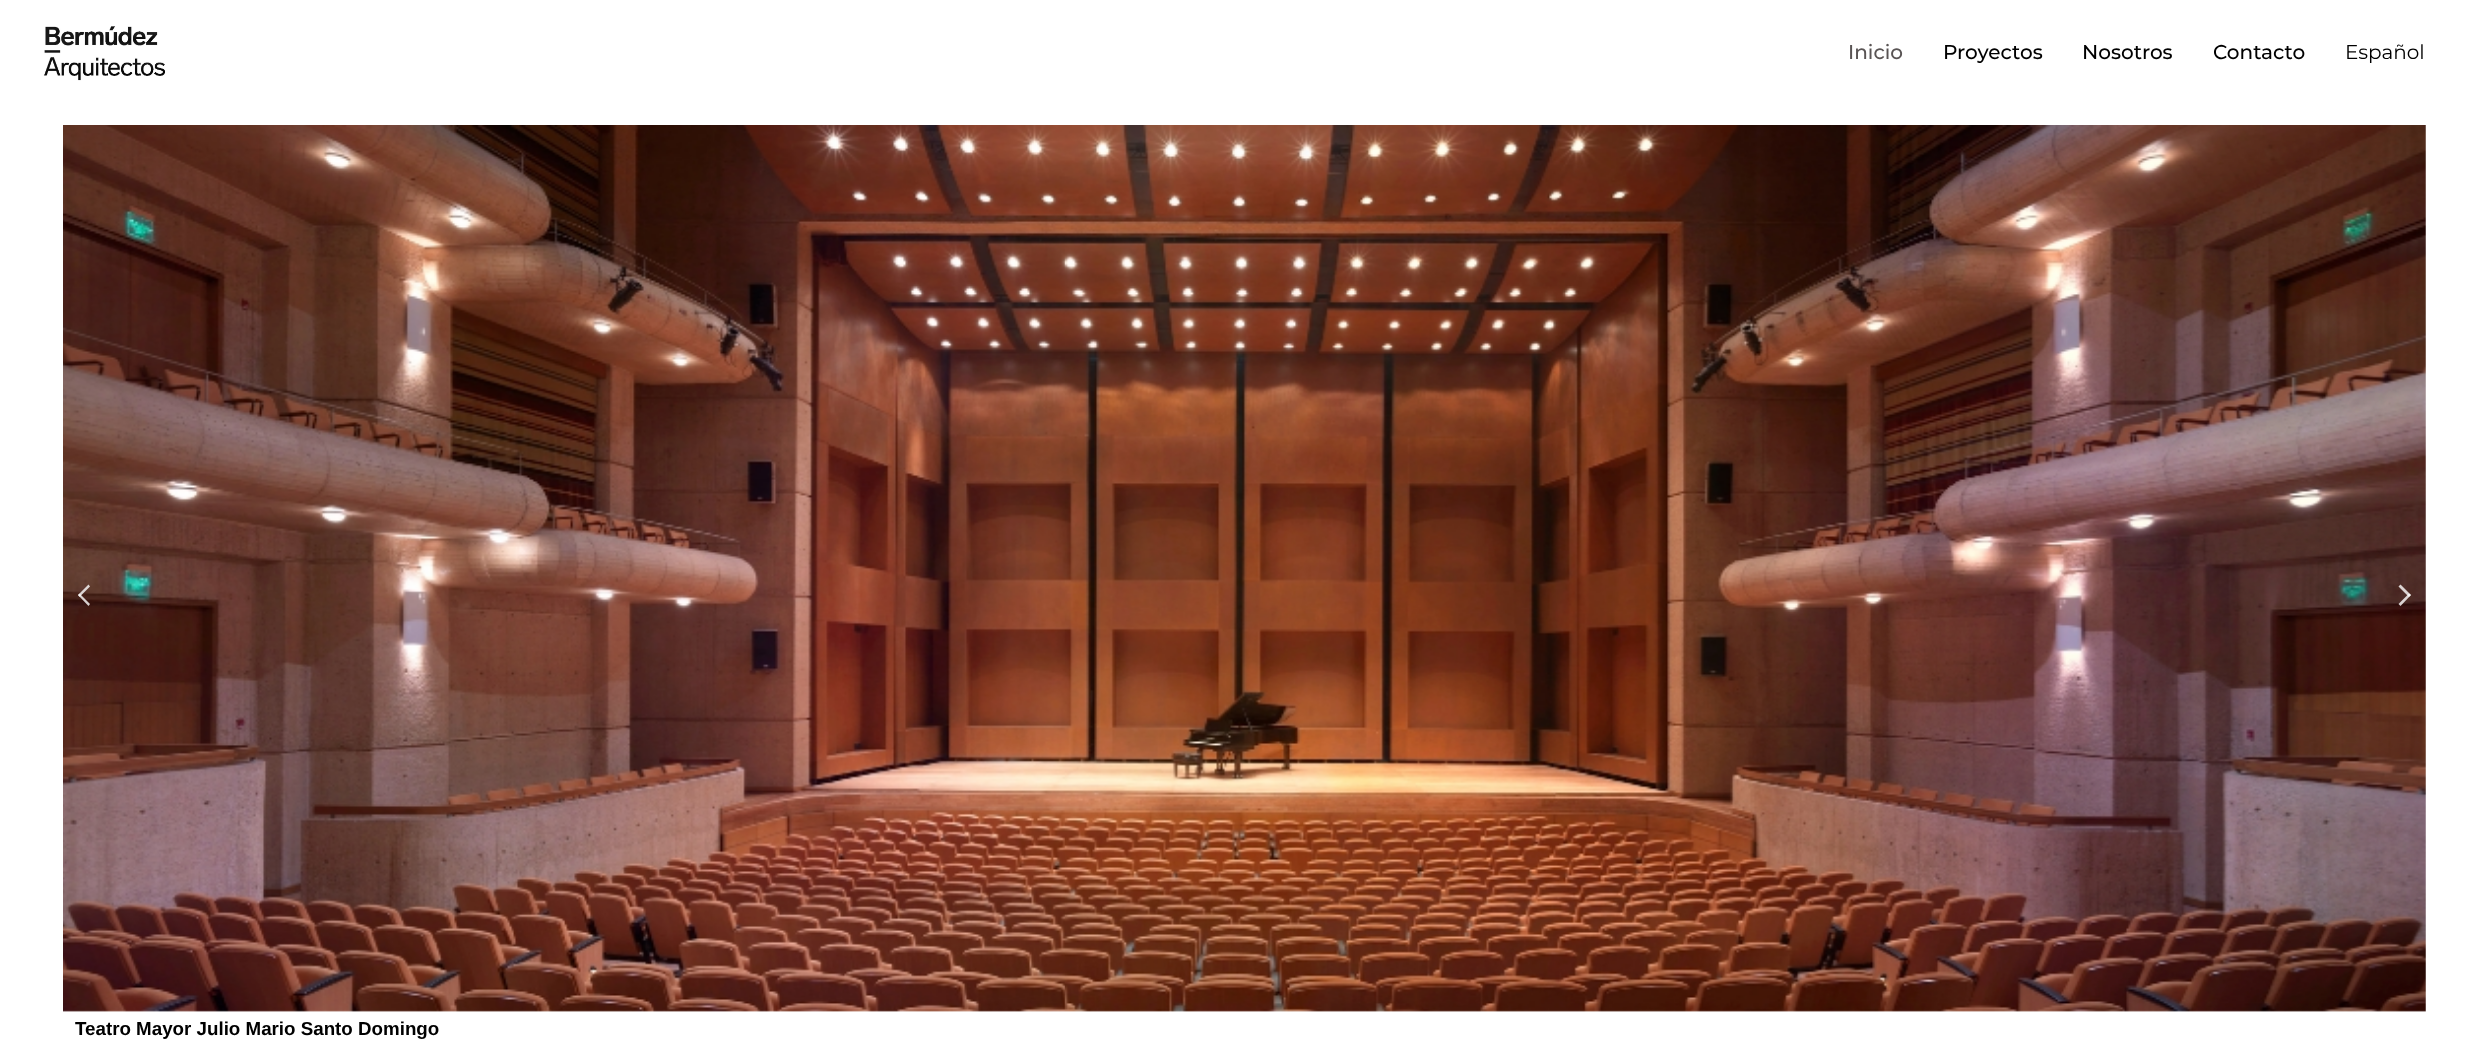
<svg xmlns="http://www.w3.org/2000/svg" width="2488" height="1039" viewBox="0 0 2488 1039">
  <rect width="100%" height="100%" fill="#fff"/>
  <image x="43" y="26" width="122" height="55" href="img/1.png"/>
  <image x="63" y="125" width="2363" height="887" href="img/2.png"/>
  <path d="M90 604L88.5 606L78 595L79.5 593.5Z" fill="#ffffffcc"/>
  <path d="M90 586.5L79.5 597L78 595L88.5 584.5Z" fill="#ffffffcc"/>
  <path d="M2398.5 586.5L2400.5 584.5L2411 595L2409 597Z" fill="#ffffffcc"/>
  <path d="M2398.5 604L2409 593.5L2411 595L2400.5 606Z" fill="#ffffffcc"/>
  <text x="1848" y="59" font-family="Montserrat" font-size="20" font-weight="500" fill="#595454">Inicio</text>
  <g font-family="Montserrat" font-size="20" font-weight="500" fill="#000">
    <text x="1943" y="59">Proyectos</text>
    <text x="2082" y="59">Nosotros</text>
    <text x="2213" y="59">Contacto</text>
  </g>
  <text x="2345" y="59" font-family="Montserrat" font-size="20" fill="#000">Español</text>
  <text x="75" y="1035" font-family="Liberation Sans" font-size="18.75" font-weight="bold" fill="#000">Teatro Mayor Julio Mario Santo Domingo</text>
</svg>
